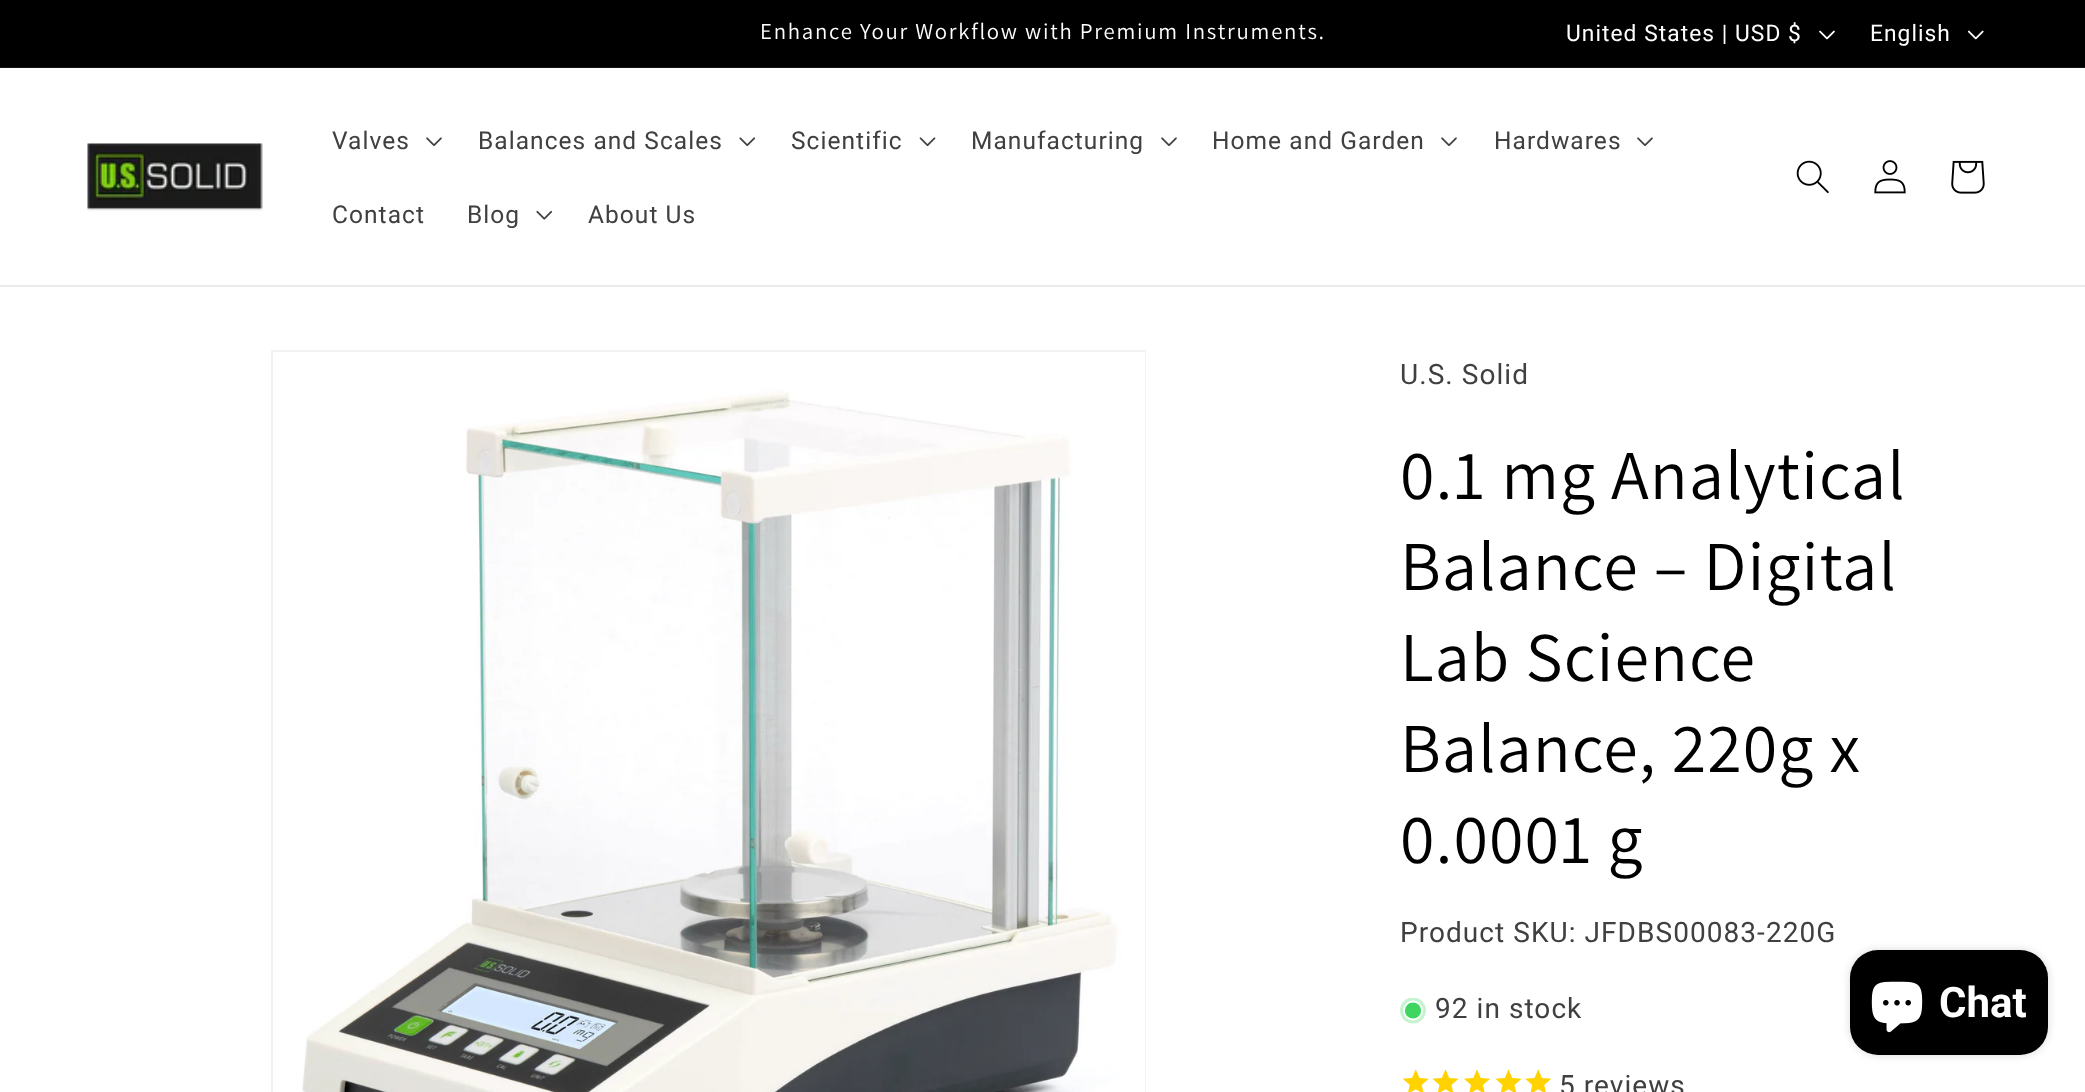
<svg xmlns="http://www.w3.org/2000/svg" width="2085" height="1092" viewBox="0 0 2085 1092">
  <defs>
    <clipPath id="clip1"><path d="M1400 998h26v26H1400z"/></clipPath>
  </defs>
  <rect width="100%" height="100%" fill="#fff"/>
  <path d="M0 0h2085v67H0z" fill="#000"/>
  <path d="M0 67h2085v1H0z" fill="#141414"/>
  <image x="1819" y="30" width="16" height="10" href="img/1.png"/>
  <image x="1967" y="30" width="17" height="10" href="img/2.png"/>
  <path d="M0 285h2085v2H0z" fill="#ebebeb"/>
  <image x="87" y="143" width="176" height="68" href="img/3.png"/>
  <image x="426" y="137" width="16" height="9" href="img/4.png"/>
  <image x="739" y="137" width="17" height="10" href="img/5.png"/>
  <image x="919" y="137" width="17" height="10" href="img/6.png"/>
  <image x="1161" y="137" width="16" height="9" href="img/4.png"/>
  <image x="1441" y="137" width="16" height="9" href="img/4.png"/>
  <image x="1637" y="137" width="16" height="9" href="img/4.png"/>
  <image x="536" y="210" width="17" height="10" href="img/7.png"/>
  <image x="1796" y="160" width="33" height="34" href="img/8.png"/>
  <image x="1874" y="160" width="32" height="34" href="img/9.png"/>
  <image x="1951" y="160" width="34" height="34" href="img/10.png"/>
  <path d="M272 351h873v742H272z" fill="none" stroke="#f2f2f2" stroke-width="2"/>
  <image x="302" y="352" width="843" height="740" href="img/11.png"/>
  <g clip-path="url(#clip1)">
    <circle cx="1413" cy="1010.5" r="13" fill="#c5f3cf"/>
  </g>
  <circle cx="1413" cy="1010.5" r="9" fill="#3ed660" stroke="#fff" stroke-width="1.8"/>
  <image x="1402" y="1069" width="27" height="23" href="img/12.png"/>
  <image x="1432" y="1069" width="27" height="23" href="img/13.png"/>
  <image x="1464" y="1069" width="26" height="23" href="img/14.png"/>
  <image x="1495" y="1069" width="27" height="23" href="img/13.png"/>
  <image x="1525" y="1069" width="27" height="23" href="img/15.png"/>
  <rect x="1850" y="950" width="198" height="105" rx="28" fill="#00000026" filter="blur(4.5px)"/>
  <rect x="1850" y="950" width="198" height="105" rx="28" fill="#000"/>
  <image x="1871" y="981" width="52" height="52" href="img/16.png"/>
  <text x="760" y="39" font-family="Assistant" font-size="22.75" letter-spacing="1.75" fill="#fff">Enhance Your Workflow with Premium Instruments.</text>
  <g font-family="Roboto" font-size="22.75" letter-spacing="1.05" fill="#fff">
    <text x="1566" y="41">United States | USD $</text>
    <text x="1870" y="41">English</text>
  </g>
  <g font-family="Roboto" font-size="24.5" letter-spacing="1.05" fill="#404040">
    <text x="332" y="149">Valves</text>
    <text x="478" y="149">Balances and Scales</text>
    <text x="791" y="149">Scientific</text>
    <text x="971" y="149">Manufacturing</text>
    <text x="1212" y="149">Home and Garden</text>
    <text x="1494" y="149">Hardwares</text>
    <text x="332" y="223">Contact</text>
    <text x="467" y="223">Blog</text>
    <text x="588" y="223">About Us</text>
  </g>
  <text x="1400" y="384" font-family="Roboto" font-size="28" letter-spacing="1.05" fill="#404040">U.S. Solid</text>
  <g font-family="Assistant" font-size="70" letter-spacing="1.05" fill="#000">
    <text x="1400" y="499">0.1 mg Analytical</text>
    <text x="1400" y="590">Balance – Digital</text>
    <text x="1400" y="681">Lab Science</text>
    <text x="1400" y="772">Balance, 220g x</text>
    <text x="1400" y="863">0.0001 g</text>
  </g>
  <g font-family="Roboto" font-size="28" letter-spacing="1.05" fill="#404040">
    <text x="1400" y="942">Product SKU: JFDBS00083-220G</text>
    <text x="1435" y="1018">92 in stock</text>
    <text x="1559" y="1095">5 reviews</text>
  </g>
  <text x="1939" y="1017" font-family="Roboto" font-size="42" font-weight="bold" fill="#fff">Chat</text>
</svg>
